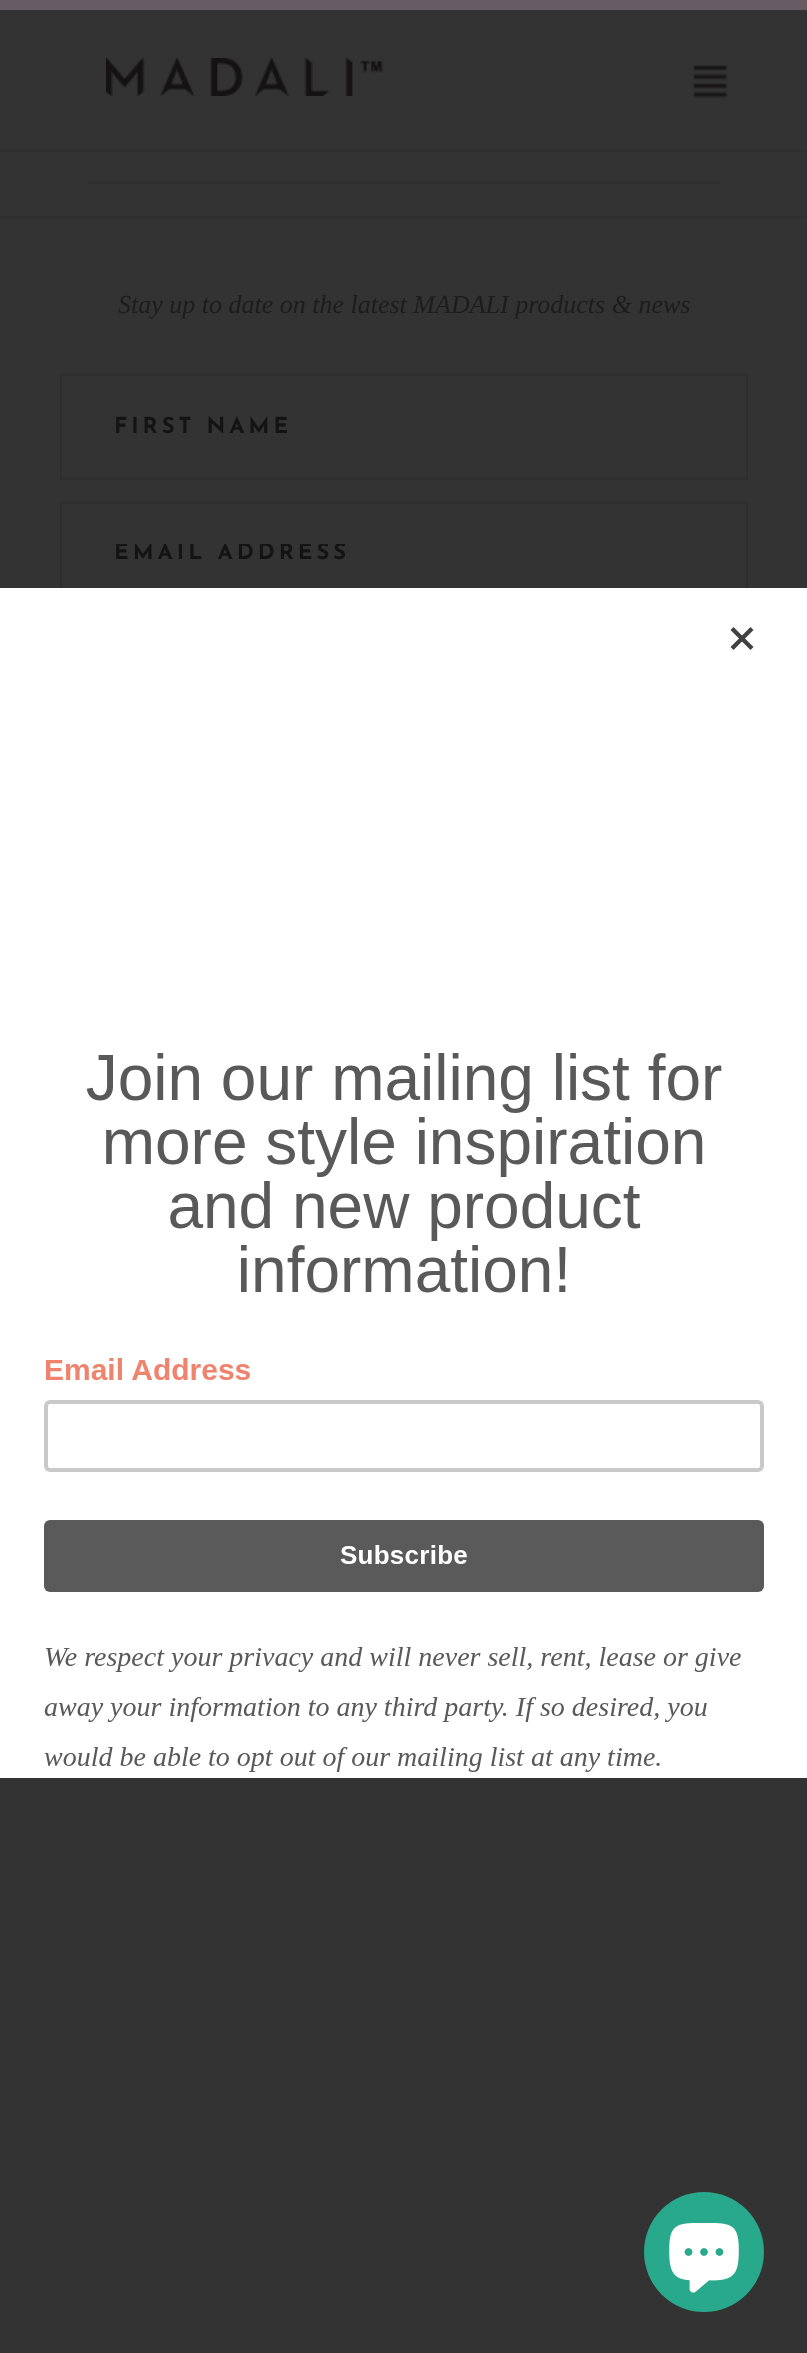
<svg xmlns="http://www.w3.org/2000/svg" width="807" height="2353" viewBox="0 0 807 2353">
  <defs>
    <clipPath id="clip1"><path d="M102 544h604v22H102z"/></clipPath>
  </defs>
  <rect width="100%" height="100%" fill="#333"/>
  <path d="M0 0h807v10H0z" fill="#675c63"/>
  <path d="M0 150h807v2H0z" fill="#2e2e2e"/>
  <image x="106" y="58" width="277" height="38" href="img/1.png"/>
  <image x="693" y="65" width="36" height="34" href="img/2.png"/>
  <path d="M88 182h632v2H88z" fill="#2e2e2e"/>
  <path d="M0 216h807v2H0z" fill="#2e2e2e"/>
  <path d="M61 375h686v104H61z" fill="none" stroke="#2e2e2e" stroke-width="2"/>
  <path d="M61 503h686v104H61z" fill="none" stroke="#2e2e2e" stroke-width="2"/>
  <image x="0" y="588" width="807" height="1190" href="img/3.png"/>
  <path d="M750.5 627L753.5 630L733.5 650L730.5 647Z" fill="#414141"/>
  <path d="M730.5 630L733.5 627L753.5 647L750.5 650Z" fill="#414141"/>
  <circle cx="704" cy="2252" r="60" fill="#29a98b"/>
  <image x="669" y="2223" width="70" height="70" href="img/4.png"/>
  <text x="118" y="313" font-family="Liberation Serif" font-size="26" font-style="italic" fill="#1d1d1d">Stay up to date on the latest MADALI products &amp; news</text>
  <text x="114" y="433" font-family="Josefin Sans" font-size="22" font-weight="bold" letter-spacing="4" fill="#141414">FIRST NAME</text>
  <g clip-path="url(#clip1)">
    <text x="114" y="559" font-family="Josefin Sans" font-size="22" font-weight="bold" letter-spacing="4" fill="#141414">EMAIL ADDRESS</text>
  </g>
</svg>
